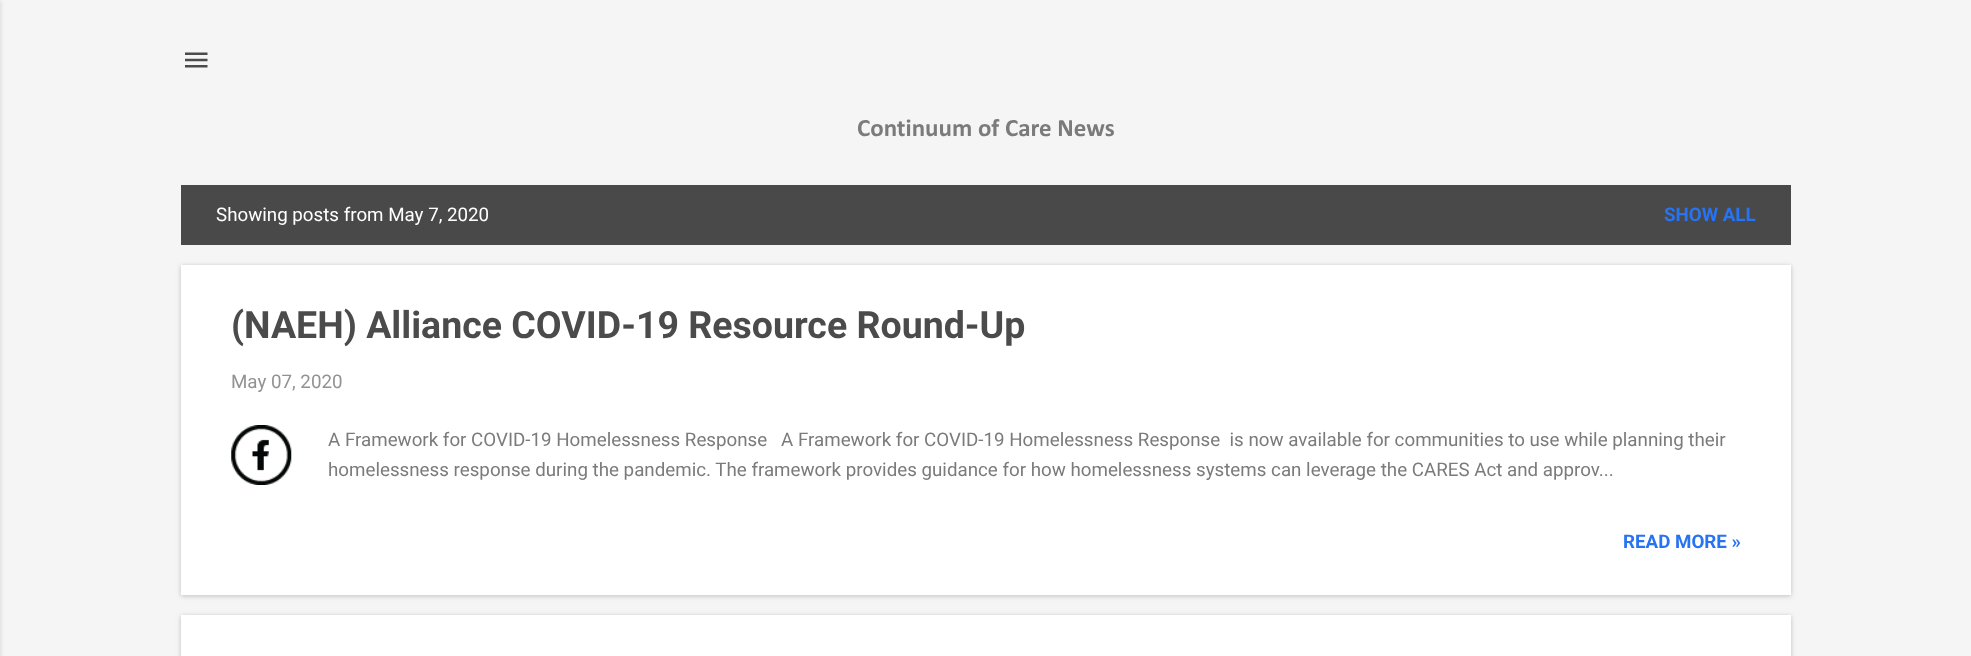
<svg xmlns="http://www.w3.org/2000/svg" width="1971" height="656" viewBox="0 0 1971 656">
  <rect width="100%" height="100%" fill="#f5f5f5"/>
  <path d="M-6 1h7v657H-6z" fill="#0000001a" filter="blur(2px)"/>
  <image x="185" y="52" width="23" height="16" href="img/1.png"/>
  <path d="M181 185h1610v60H181z" fill="#494949"/>
  <path d="M181 266h1610v330H181z" fill="#45494d4d" filter="blur(2.5px)"/>
  <path d="M181 265h1610v330H181z" fill="#fff"/>
  <image x="231" y="425" width="61" height="60" href="img/2.png"/>
  <path d="M181 616h1610v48H181z" fill="#45494d4d" filter="blur(2.5px)"/>
  <path d="M181 615h1610v41H181z" fill="#fff"/>
  <text x="857" y="136" font-family="Calibri" font-size="25" font-weight="bold" fill="#7b7b7b">Continuum of Care News</text>
  <text x="216" y="221" font-family="Roboto" font-size="18.75" fill="#fff">Showing posts from May 7, 2020</text>
  <text x="1664" y="221" font-family="Roboto" font-size="18.75" font-weight="bold" fill="#2673f3">SHOW ALL</text>
  <text x="231" y="338" font-family="Roboto" font-size="37.5" font-weight="bold" fill="#4b4b4b">(NAEH) Alliance COVID-19 Resource Round-Up</text>
  <text x="231" y="388" font-family="Roboto" font-size="18.75" fill="#929292">May 07, 2020</text>
  <g font-family="Roboto" font-size="18.75" fill="#7b7b7b">
    <text x="328" y="446">A Framework for COVID-19 Homelessness Response</text>
    <text x="781" y="446" xml:space="preserve">A Framework for COVID-19 Homelessness Response  is now available for communities to use while planning their</text>
    <text x="328" y="476">homelessness response during the pandemic. The framework provides guidance for how homelessness systems can leverage the CARES Act and approv...</text>
  </g>
  <text x="1623" y="548" font-family="Roboto" font-size="18.75" font-weight="bold" fill="#2673f3">READ MORE »</text>
</svg>
